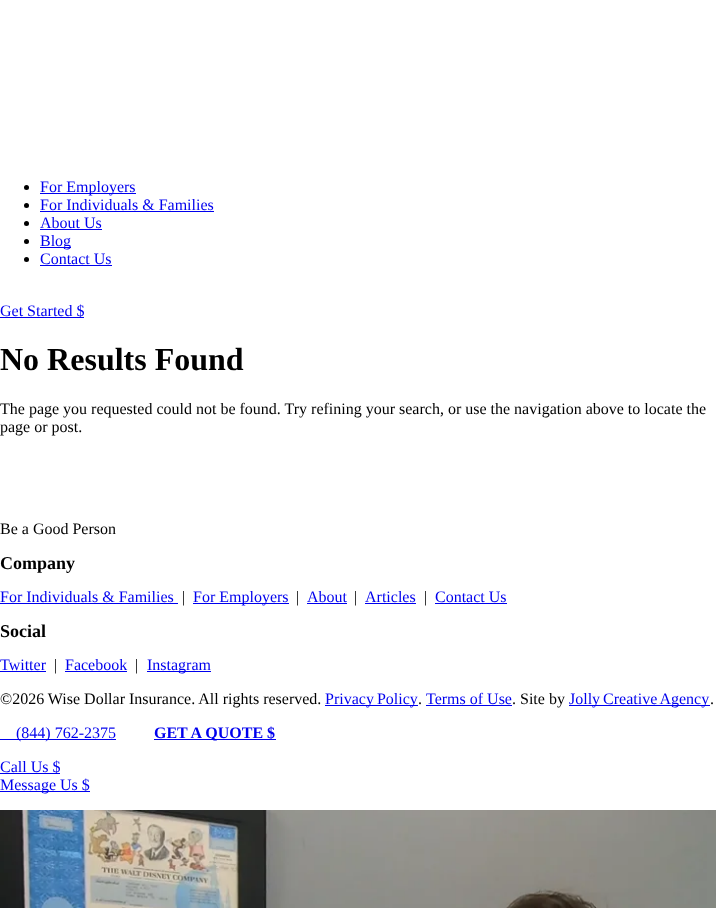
<svg xmlns="http://www.w3.org/2000/svg" width="716" height="908" viewBox="0 0 716 908">
  <rect width="100%" height="100%" fill="#fff"/>
  <circle cx="26.5" cy="187.5" r="2.5" fill="#000"/>
  <path d="M40 193h96v1H40z" fill="#00e"/>
  <circle cx="26.5" cy="205.5" r="2.5" fill="#000"/>
  <path d="M40 211h174v1H40z" fill="#00e"/>
  <circle cx="26.5" cy="223.5" r="2.5" fill="#000"/>
  <path d="M40 229h62v1H40z" fill="#00e"/>
  <circle cx="26.5" cy="241.5" r="2.5" fill="#000"/>
  <path d="M40 247h31v1H40z" fill="#00e"/>
  <circle cx="26.5" cy="259.5" r="2.5" fill="#000"/>
  <path d="M40 265h72v1H40z" fill="#00e"/>
  <path d="M0 317h84v1H0z" fill="#00e"/>
  <path d="M0 603h178v1H0z" fill="#00e"/>
  <path d="M193 603h96v1H193z" fill="#00e"/>
  <path d="M307 603h40v1H307z" fill="#00e"/>
  <path d="M365 603h51v1H365z" fill="#00e"/>
  <path d="M435 603h72v1H435z" fill="#00e"/>
  <path d="M0 671h46v1H0z" fill="#00e"/>
  <path d="M65 671h62v1H65z" fill="#00e"/>
  <path d="M147 671h64v1H147z" fill="#00e"/>
  <path d="M325 705h93v1H325z" fill="#00e"/>
  <path d="M426 705h86v1H426z" fill="#00e"/>
  <path d="M569 705h141v1H569z" fill="#00e"/>
  <path d="M0 739h116v1H0z" fill="#00e"/>
  <path d="M154 739h122v1H154z" fill="#00e"/>
  <path d="M0 773h60v1H0z" fill="#00e"/>
  <path d="M0 791h90v1H0z" fill="#00e"/>
  <image x="0" y="810" width="716" height="98" href="img/1.png"/>
  <g font-family="Liberation Serif" font-size="16" fill="#00e">
    <text x="40" y="192">For Employers</text>
    <text x="40" y="210">For Individuals &amp; Families</text>
    <text x="40" y="228">About Us</text>
    <text x="40" y="246">Blog</text>
    <text x="40" y="264">Contact Us</text>
    <text x="0" y="316">Get Started $</text>
  </g>
  <text x="0" y="370" font-family="Liberation Serif" font-size="32" font-weight="bold" fill="#000">No Results Found</text>
  <g font-family="Liberation Serif" font-size="16" fill="#000">
    <text x="0" y="414">The page you requested could not be found. Try refining your search, or use the navigation above to locate the</text>
    <text x="0" y="432">page or post.</text>
    <text x="0" y="534">Be a Good Person</text>
  </g>
  <text x="0" y="569" font-family="Liberation Serif" font-size="18" font-weight="bold" fill="#000">Company</text>
  <text x="0" y="602" font-family="Liberation Serif" font-size="16" fill="#00e">For Individuals &amp; Families</text>
  <text x="182" y="602" font-family="Liberation Serif" font-size="16" fill="#000">|</text>
  <text x="193" y="602" font-family="Liberation Serif" font-size="16" fill="#00e">For Employers</text>
  <text x="296" y="602" font-family="Liberation Serif" font-size="16" fill="#000">|</text>
  <text x="307" y="602" font-family="Liberation Serif" font-size="16" fill="#00e">About</text>
  <text x="354" y="602" font-family="Liberation Serif" font-size="16" fill="#000">|</text>
  <text x="365" y="602" font-family="Liberation Serif" font-size="16" fill="#00e">Articles</text>
  <text x="424" y="602" font-family="Liberation Serif" font-size="16" fill="#000">|</text>
  <text x="435" y="602" font-family="Liberation Serif" font-size="16" fill="#00e">Contact Us</text>
  <text x="0" y="637" font-family="Liberation Serif" font-size="18" font-weight="bold" fill="#000">Social</text>
  <text x="0" y="670" font-family="Liberation Serif" font-size="16" fill="#00e">Twitter</text>
  <text x="54" y="670" font-family="Liberation Serif" font-size="16" fill="#000">|</text>
  <text x="65" y="670" font-family="Liberation Serif" font-size="16" fill="#00e">Facebook</text>
  <text x="135" y="670" font-family="Liberation Serif" font-size="16" fill="#000">|</text>
  <text x="147" y="670" font-family="Liberation Serif" font-size="16" fill="#00e">Instagram</text>
  <text x="0" y="704" font-family="Liberation Serif" font-size="16" fill="#000">©2026 Wise Dollar Insurance. All rights reserved.</text>
  <text x="325" y="704" word-spacing="-1" font-family="Liberation Serif" font-size="16" fill="#00e">Privacy Policy</text>
  <text x="418" y="704" font-family="Liberation Serif" font-size="16" fill="#000">.</text>
  <text x="426" y="704" font-family="Liberation Serif" font-size="16" fill="#00e">Terms of Use</text>
  <text x="512" y="704" font-family="Liberation Serif" font-size="16" fill="#000">. Site by</text>
  <text x="569" y="704" word-spacing="-1" font-family="Liberation Serif" font-size="16" fill="#00e">Jolly Creative Agency</text>
  <text x="710" y="704" font-family="Liberation Serif" font-size="16" fill="#000">.</text>
  <text x="16" y="738" font-family="Liberation Serif" font-size="16" fill="#00e">(844) 762-2375</text>
  <text x="154" y="738" font-family="Liberation Serif" font-size="16" font-weight="bold" fill="#00e">GET A QUOTE $</text>
  <g font-family="Liberation Serif" font-size="16" fill="#00e">
    <text x="0" y="772">Call Us $</text>
    <text x="0" y="790">Message Us $</text>
  </g>
</svg>
